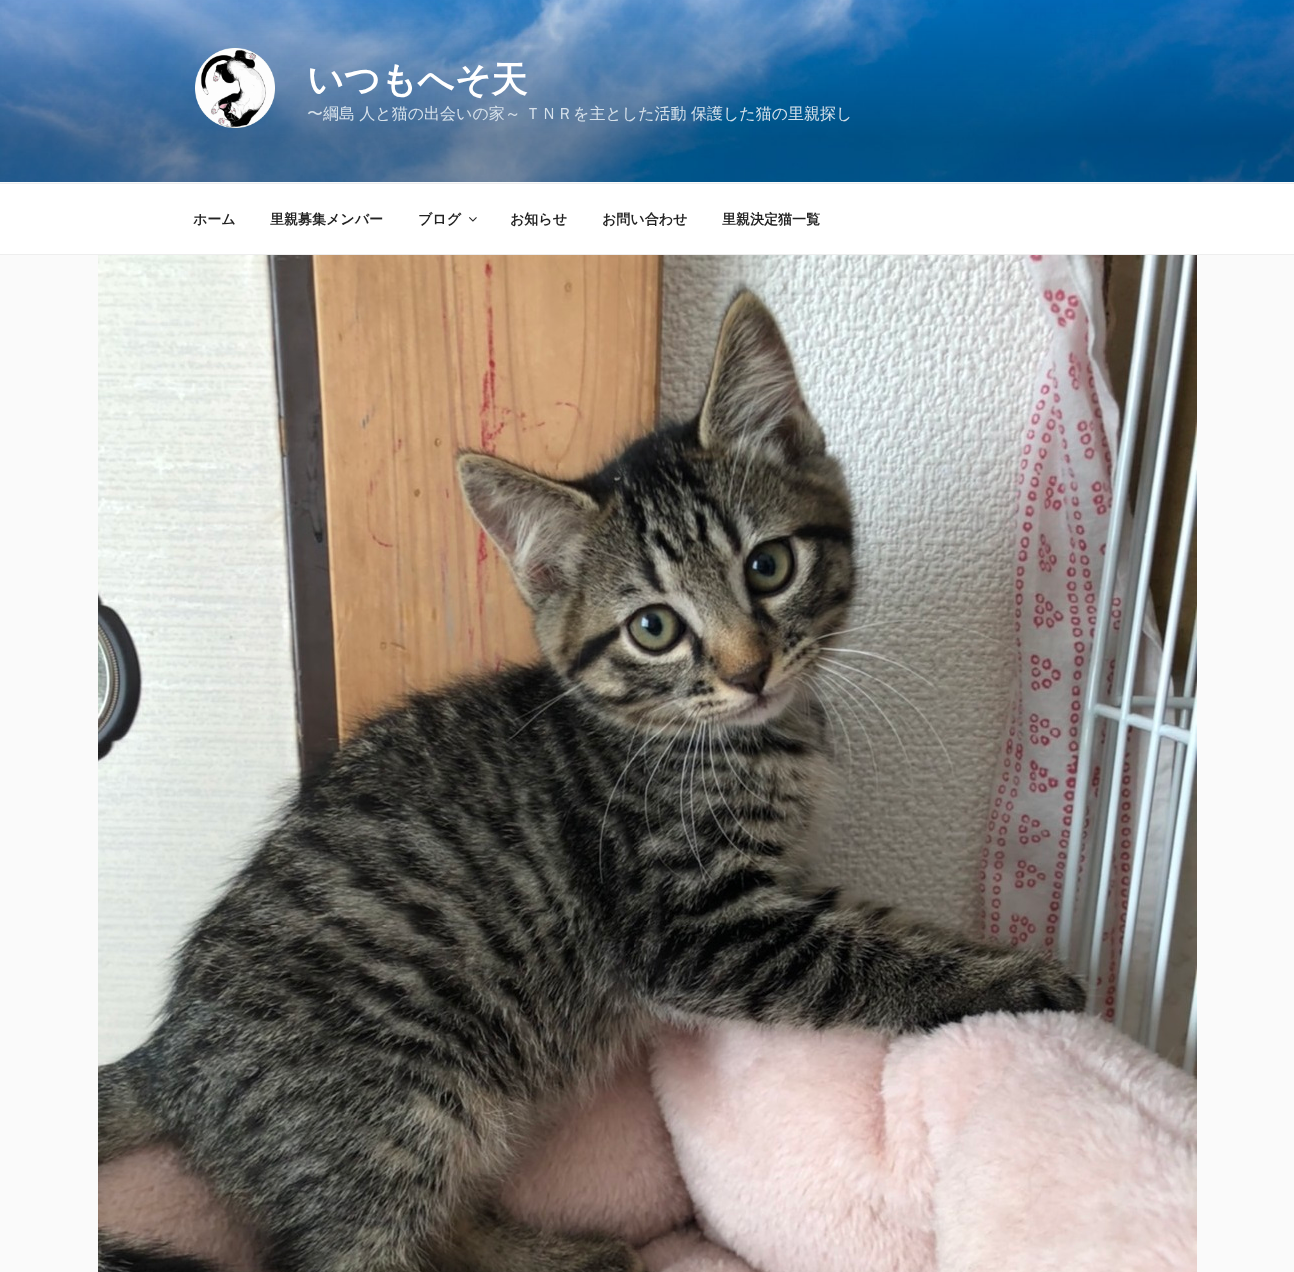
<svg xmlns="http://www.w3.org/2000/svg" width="1294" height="1272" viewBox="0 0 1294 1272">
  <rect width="100%" height="100%" fill="#fafafa"/>
  <image x="0" y="0" width="1294" height="182" href="img/1.png"/>
  <image x="195" y="48" width="80" height="80" href="img/2.png"/>
  <path d="M0 184h1294v70H0z" fill="#fff"/>
  <path d="M0 183h1294v1H0z" fill="#eee"/>
  <path d="M0 254h1294v1H0z" fill="#eee"/>
  <image x="469" y="217" width="8" height="5" href="img/3.png"/>
  <image x="98" y="255" width="1099" height="1017" href="img/4.png"/>
  <text x="307" y="92" font-family="WenQuanYi Zen Hei" font-size="36" font-weight="bold" fill="#fff">いつもへそ天</text>
  <text x="307" y="119" word-spacing="-0.5" font-family="WenQuanYi Zen Hei" font-size="16" font-weight="500" fill="#d7e2eb">〜綱島 人と猫の出会いの家～ ＴＮＲを主とした活動 保護した猫の里親探し</text>
  <g font-family="WenQuanYi Zen Hei" font-size="14" font-weight="bold" fill="#222">
    <text x="193" y="224">ホーム</text>
    <text x="270" y="224">里親募集メンバー</text>
    <text x="418" y="224">ブログ</text>
    <text x="510" y="224">お知らせ</text>
    <text x="602" y="224">お問い合わせ</text>
    <text x="722" y="224">里親決定猫一覧</text>
  </g>
</svg>
